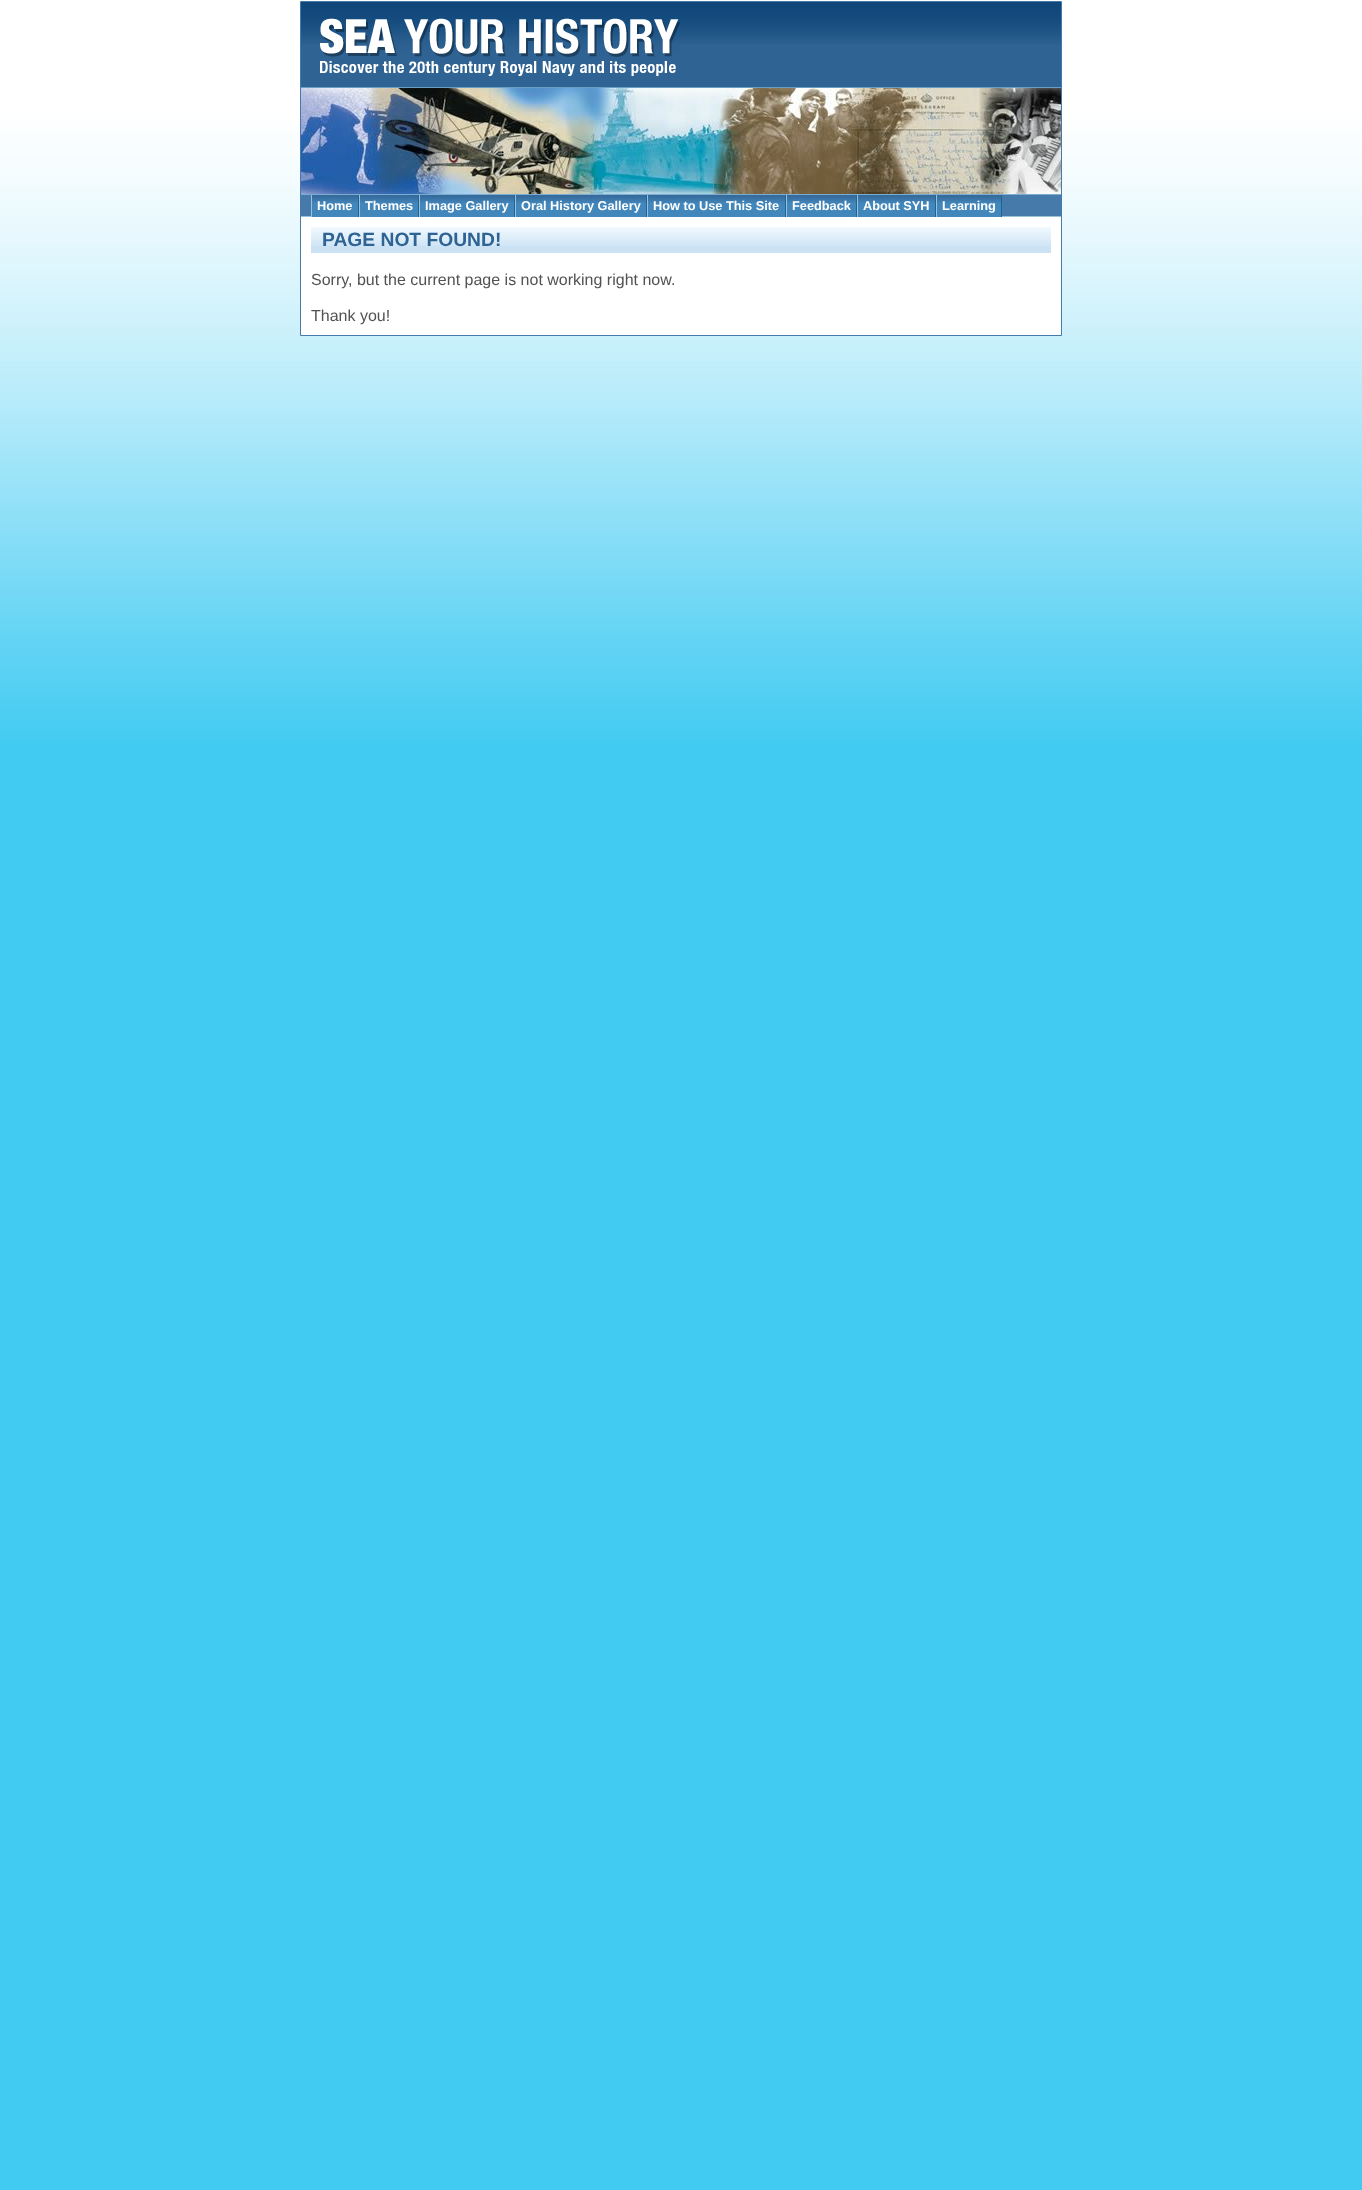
<svg xmlns="http://www.w3.org/2000/svg" width="1362" height="2190" viewBox="0 0 1362 2190">
  <rect width="100%" height="100%" fill="#41cbf2"/>
  <image x="0" y="0" width="1362" height="741" href="img/1.png"/>
  <path d="M301 217h760v118H301z" fill="#fff"/>
  <path d="M300.5 1.5h761v334H300.5z" fill="none" stroke="#467aaa"/>
  <path d="M301 44h760v43H301z" fill="#2f6393"/>
  <image x="301" y="2" width="760" height="42" href="img/2.png"/>
  <path d="M301 87h760v1H301z" fill="#6a9ec5"/>
  <image x="320" y="18" width="360" height="58" href="img/3.png"/>
  <image x="301" y="88" width="760" height="106" href="img/4.png"/>
  <path d="M301 195h760v21H301z" fill="#467aaa"/>
  <path d="M301 216h760v1H301z" fill="#9bc0da"/>
  <path d="M301 194h760v1H301z" fill="#79add1"/>
  <path d="M312 203h46v14H312z" fill="#4287bb"/>
  <image x="312" y="195" width="46" height="8" href="img/5.png"/>
  <path d="M358 195h1v22H358z" fill="#1a6593"/>
  <path d="M311 195h1v22H311z" fill="#9bc0d9"/>
  <path d="M360 203h58v14H360z" fill="#4287bb"/>
  <image x="360" y="195" width="58" height="8" href="img/6.png"/>
  <path d="M418 195h1v22H418z" fill="#1a6593"/>
  <path d="M359 195h1v22H359z" fill="#9bc0d9"/>
  <path d="M420 203h94v14H420z" fill="#4287bb"/>
  <image x="420" y="195" width="94" height="8" href="img/7.png"/>
  <path d="M514 195h1v22H514z" fill="#1a6593"/>
  <path d="M419 195h1v22H419z" fill="#9bc0d9"/>
  <path d="M516 203h130v14H516z" fill="#4287bb"/>
  <image x="516" y="195" width="130" height="8" href="img/8.png"/>
  <path d="M646 195h1v22H646z" fill="#1a6593"/>
  <path d="M515 195h1v22H515z" fill="#9bc0d9"/>
  <path d="M648 203h137v14H648z" fill="#4287bb"/>
  <image x="648" y="195" width="137" height="8" href="img/9.png"/>
  <path d="M785 195h1v22H785z" fill="#1a6593"/>
  <path d="M647 195h1v22H647z" fill="#9bc0d9"/>
  <path d="M787 203h69v14H787z" fill="#4287bb"/>
  <image x="787" y="195" width="69" height="8" href="img/10.png"/>
  <path d="M856 195h1v22H856z" fill="#1a6593"/>
  <path d="M786 195h1v22H786z" fill="#9bc0d9"/>
  <path d="M858 203h77v14H858z" fill="#4287bb"/>
  <image x="858" y="195" width="77" height="8" href="img/11.png"/>
  <path d="M935 195h1v22H935z" fill="#1a6593"/>
  <path d="M857 195h1v22H857z" fill="#9bc0d9"/>
  <path d="M937 203h64v14H937z" fill="#4287bb"/>
  <image x="937" y="195" width="64" height="8" href="img/12.png"/>
  <path d="M1001 195h1v22H1001z" fill="#1a6593"/>
  <path d="M936 195h1v22H936z" fill="#9bc0d9"/>
  <path d="M311 246h740v7H311z" fill="#cae2f3"/>
  <image x="311" y="227" width="740" height="19" href="img/13.png"/>
  <g font-family="Liberation Sans" font-size="12.75" font-weight="bold" fill="#fff">
    <text x="317" y="210">Home</text>
    <text x="365" y="210">Themes</text>
    <text x="425" y="210">Image Gallery</text>
    <text x="521" y="210">Oral History Gallery</text>
    <text x="653" y="210">How to Use This Site</text>
    <text x="792" y="210">Feedback</text>
    <text x="863" y="210">About SYH</text>
    <text x="942" y="210">Learning</text>
  </g>
  <text x="322" y="246" font-family="Liberation Sans" font-size="19.25" font-weight="bold" fill="#2f6393">PAGE NOT FOUND!</text>
  <g font-family="Liberation Sans" font-size="16" fill="#525252">
    <text x="311" y="285">Sorry, but the current page is not working right now.</text>
    <text x="311" y="321">Thank you!</text>
  </g>
</svg>
